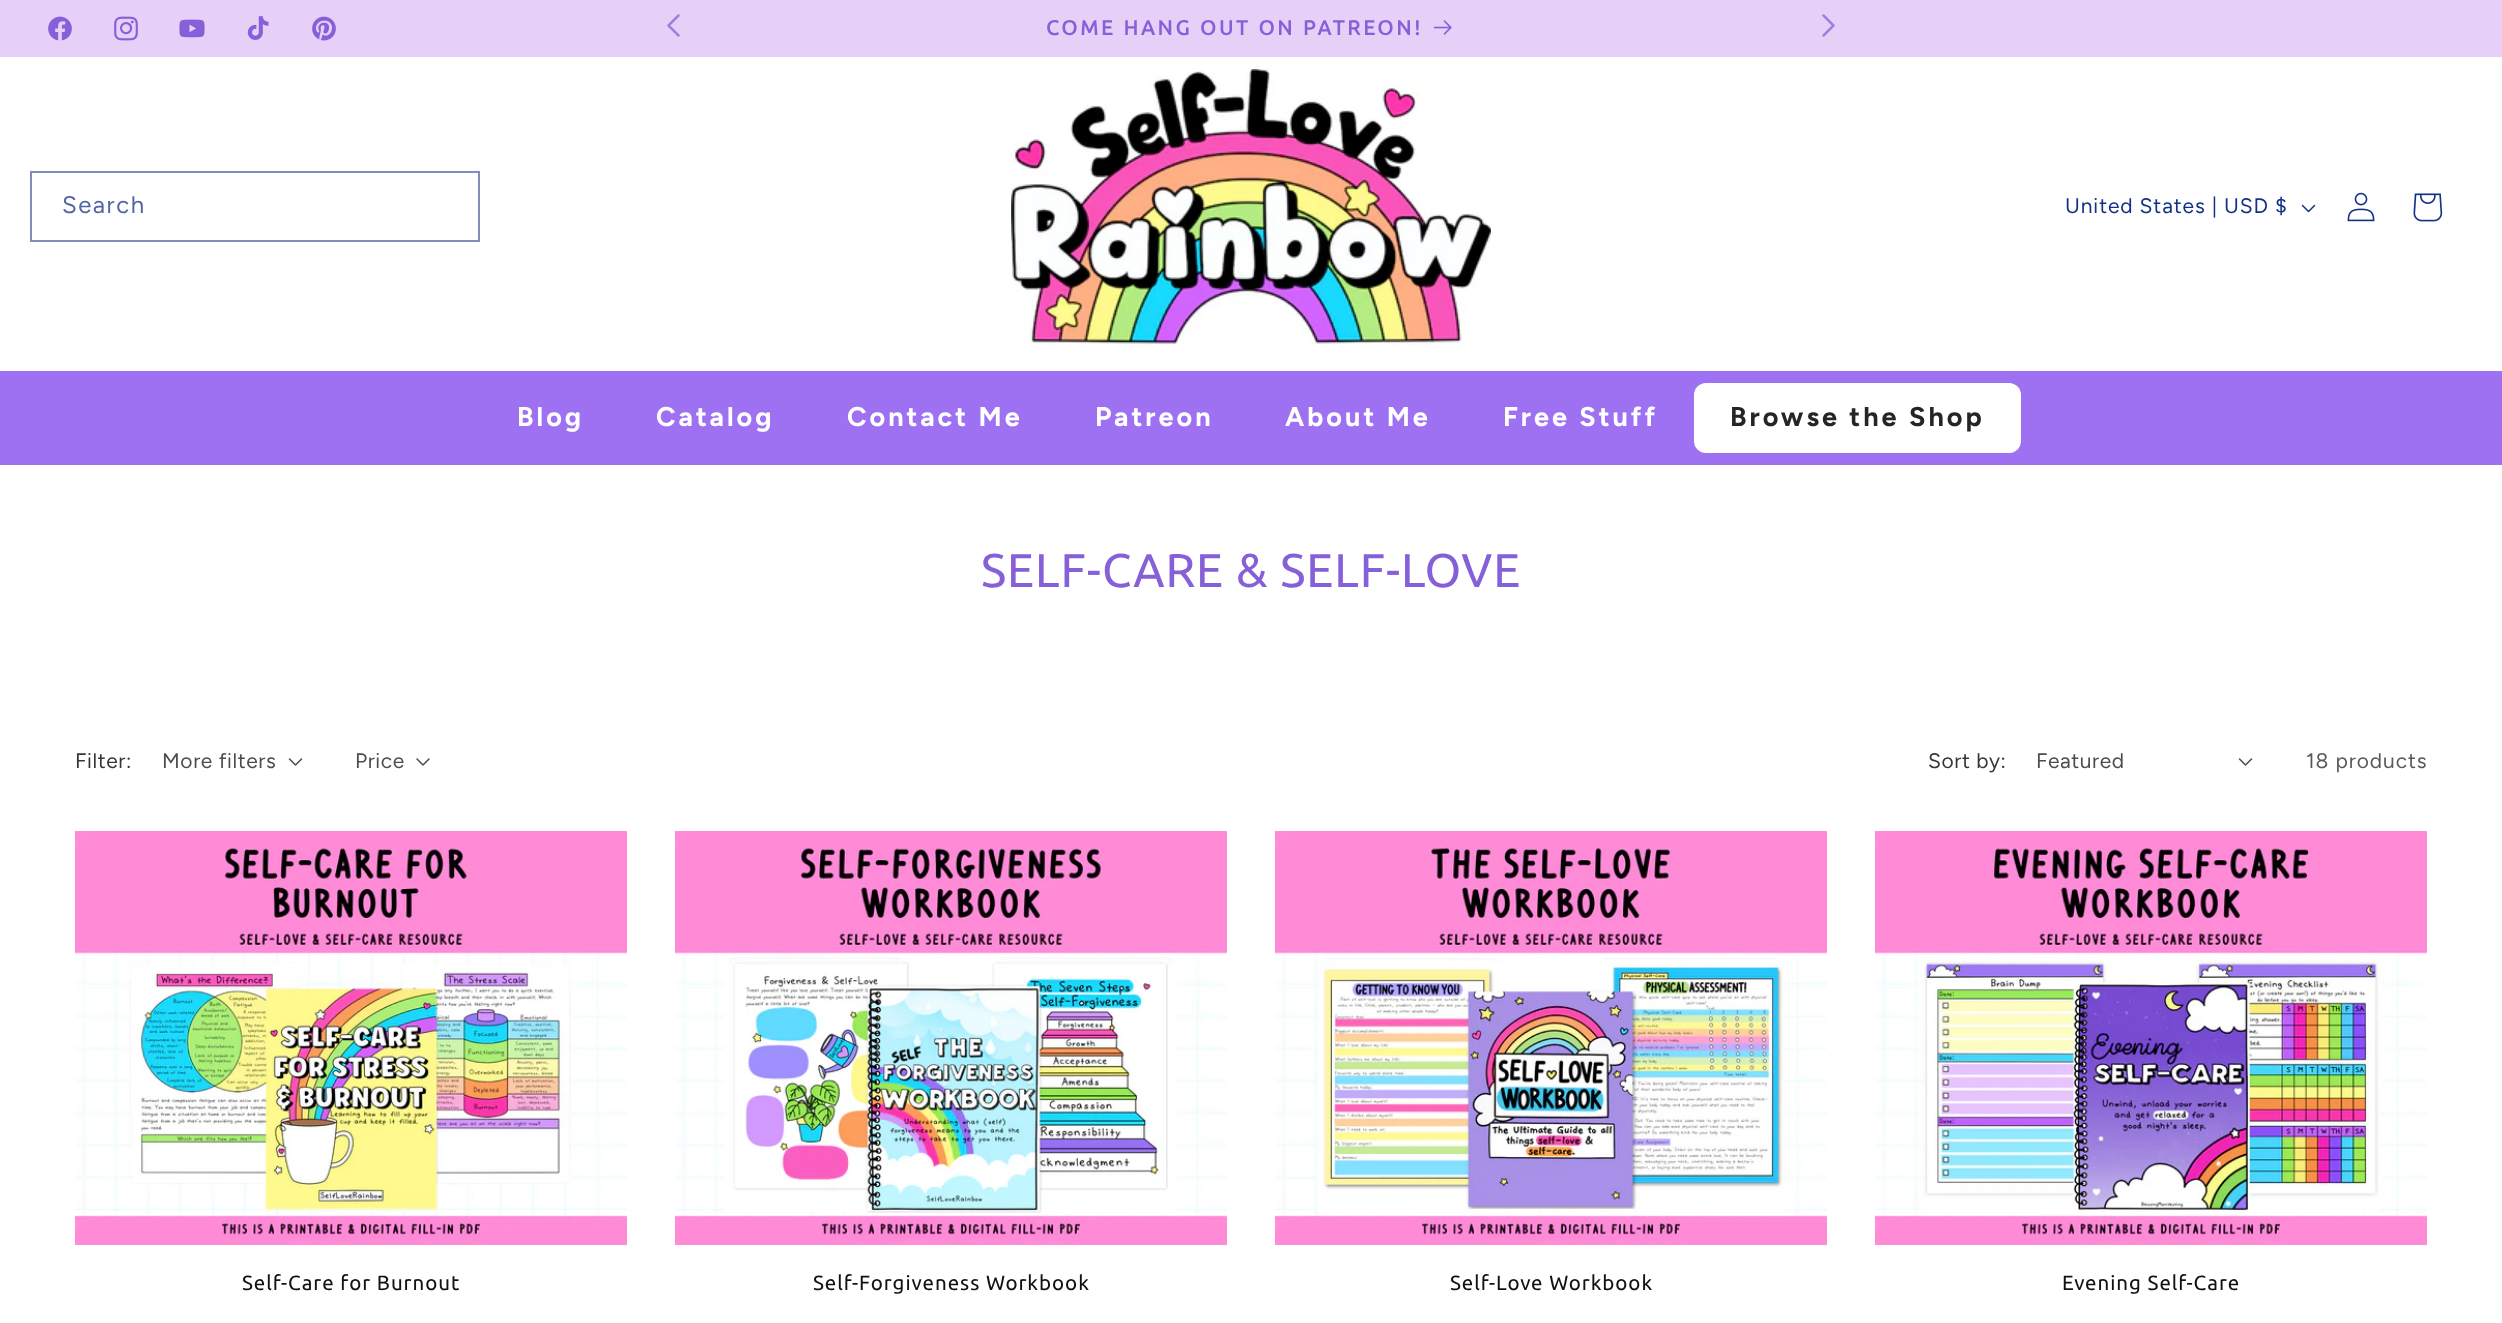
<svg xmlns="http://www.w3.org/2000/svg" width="2502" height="1323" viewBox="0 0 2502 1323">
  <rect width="100%" height="100%" fill="#fff"/>
  <path d="M0 0h2502v57H0z" fill="#e6d0f7"/>
  <image x="48" y="16" width="24" height="25" href="img/1.png"/>
  <image x="114" y="16" width="24" height="25" href="img/2.png"/>
  <image x="179" y="19" width="26" height="19" href="img/3.png"/>
  <image x="247" y="16" width="22" height="24" href="img/4.png"/>
  <image x="312" y="16" width="24" height="25" href="img/5.png"/>
  <image x="667" y="14" width="13" height="23" href="img/6.png"/>
  <image x="1434" y="20" width="18" height="15" href="img/7.png"/>
  <image x="1822" y="14" width="13" height="23" href="img/8.png"/>
  <path d="M31 172h448v69H31z" fill="none" stroke="#7e8ebc" stroke-width="2"/>
  <image x="1011" y="69" width="480" height="276" href="img/9.png"/>
  <image x="2301" y="204" width="15" height="9" href="img/10.png"/>
  <image x="2347" y="192" width="28" height="30" href="img/11.png"/>
  <image x="2413" y="193" width="30" height="29" href="img/12.png"/>
  <path d="M0 371h2502v94H0z" fill="#9e71f3"/>
  <rect x="1694" y="383" width="327" height="70" rx="12" fill="#fff"/>
  <image x="288" y="758" width="15" height="8" href="img/13.png"/>
  <image x="416" y="758" width="14" height="8" href="img/14.png"/>
  <image x="2238" y="758" width="15" height="8" href="img/13.png"/>
  <image x="75" y="831" width="552" height="414" href="img/15.png"/>
  <image x="675" y="831" width="552" height="414" href="img/16.png"/>
  <image x="1275" y="831" width="552" height="414" href="img/17.png"/>
  <image x="1875" y="831" width="552" height="414" href="img/18.png"/>
  <text x="1046" y="35" font-family="Ubuntu" font-size="20.5" font-weight="bold" letter-spacing="3" fill="#8660d9">COME HANG OUT ON PATREON!</text>
  <text x="62" y="213" font-family="Figtree" font-size="24" letter-spacing="1.5" fill="#5065a4">Search</text>
  <text x="2065" y="213" font-family="Figtree" font-size="21" letter-spacing="0.9" fill="#153186">United States | USD $</text>
  <g font-family="Figtree" font-size="27" font-weight="bold" letter-spacing="3" fill="#fff">
    <text x="517" y="426">Blog</text>
    <text x="656" y="426">Catalog</text>
    <text x="847" y="426">Contact Me</text>
    <text x="1095" y="426">Patreon</text>
    <text x="1285" y="426">About Me</text>
    <text x="1503" y="426">Free Stuff</text>
  </g>
  <text x="1730" y="426" font-family="Figtree" font-size="27" font-weight="bold" letter-spacing="3" fill="#252525">Browse the Shop</text>
  <text x="981" y="587" font-family="Ubuntu" font-size="47.25" letter-spacing="0.95" fill="#8660d9">SELF-CARE &amp; SELF-LOVE</text>
  <text x="75" y="768" font-family="Figtree" font-size="21" letter-spacing="0.6" fill="#363636">Filter:</text>
  <g font-family="Figtree" font-size="21" letter-spacing="0.6" fill="#4d4d4d">
    <text x="162" y="768">More filters</text>
    <text x="355" y="768">Price</text>
  </g>
  <text x="1928" y="768" font-family="Figtree" font-size="21" letter-spacing="0.6" fill="#363636">Sort by:</text>
  <text x="2036" y="768" font-family="Figtree" font-size="21" letter-spacing="0.6" fill="#4d4d4d">Featured</text>
  <text x="2306" y="768" font-family="Figtree" font-size="21" letter-spacing="0.9" fill="#595959">18 products</text>
  <g font-family="Ubuntu" font-size="20.5" letter-spacing="0.95" fill="#121212">
    <text x="242" y="1290">Self-Care for Burnout</text>
    <text x="813" y="1290">Self-Forgiveness Workbook</text>
    <text x="1450" y="1290">Self-Love Workbook</text>
    <text x="2062" y="1290">Evening Self-Care</text>
  </g>
</svg>
